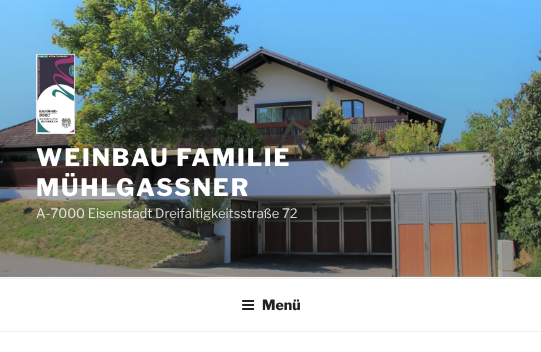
<svg xmlns="http://www.w3.org/2000/svg" width="541" height="352" viewBox="0 0 541 352">
  <rect width="100%" height="100%" fill="#fff"/>
  <path d="M0 277h541v1H0z" fill="#fafafa"/>
  <image x="0" y="0" width="541" height="277" href="img/1.png"/>
  <image x="36" y="54" width="39" height="80" href="img/2.png"/>
  <path d="M0 278h541v1H0z" fill="#eee"/>
  <path d="M0 331h541v1H0z" fill="#eee"/>
  <image x="242" y="300" width="13" height="10" href="img/3.png"/>
  <g font-family="Libre Franklin" font-size="24" font-weight="100" letter-spacing="1.9" fill="#fff">
    <text x="36" y="166">WEINBAU FAMILIE</text>
    <text x="36" y="196">MÜHLGASSNER</text>
  </g>
  <text x="36" y="218" font-family="'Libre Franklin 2'" font-size="13" font-weight="100" fill="#e1e2da">A-7000 Eisenstadt</text>
  <text x="155" y="218" font-family="'Libre Franklin 2'" font-size="13" font-weight="100" fill="#d4d5d3">Dreifaltigkeitsstraße 72</text>
  <text x="262" y="310" font-family="Libre Franklin" font-size="14" font-weight="100" fill="#222">Menü</text>
</svg>
